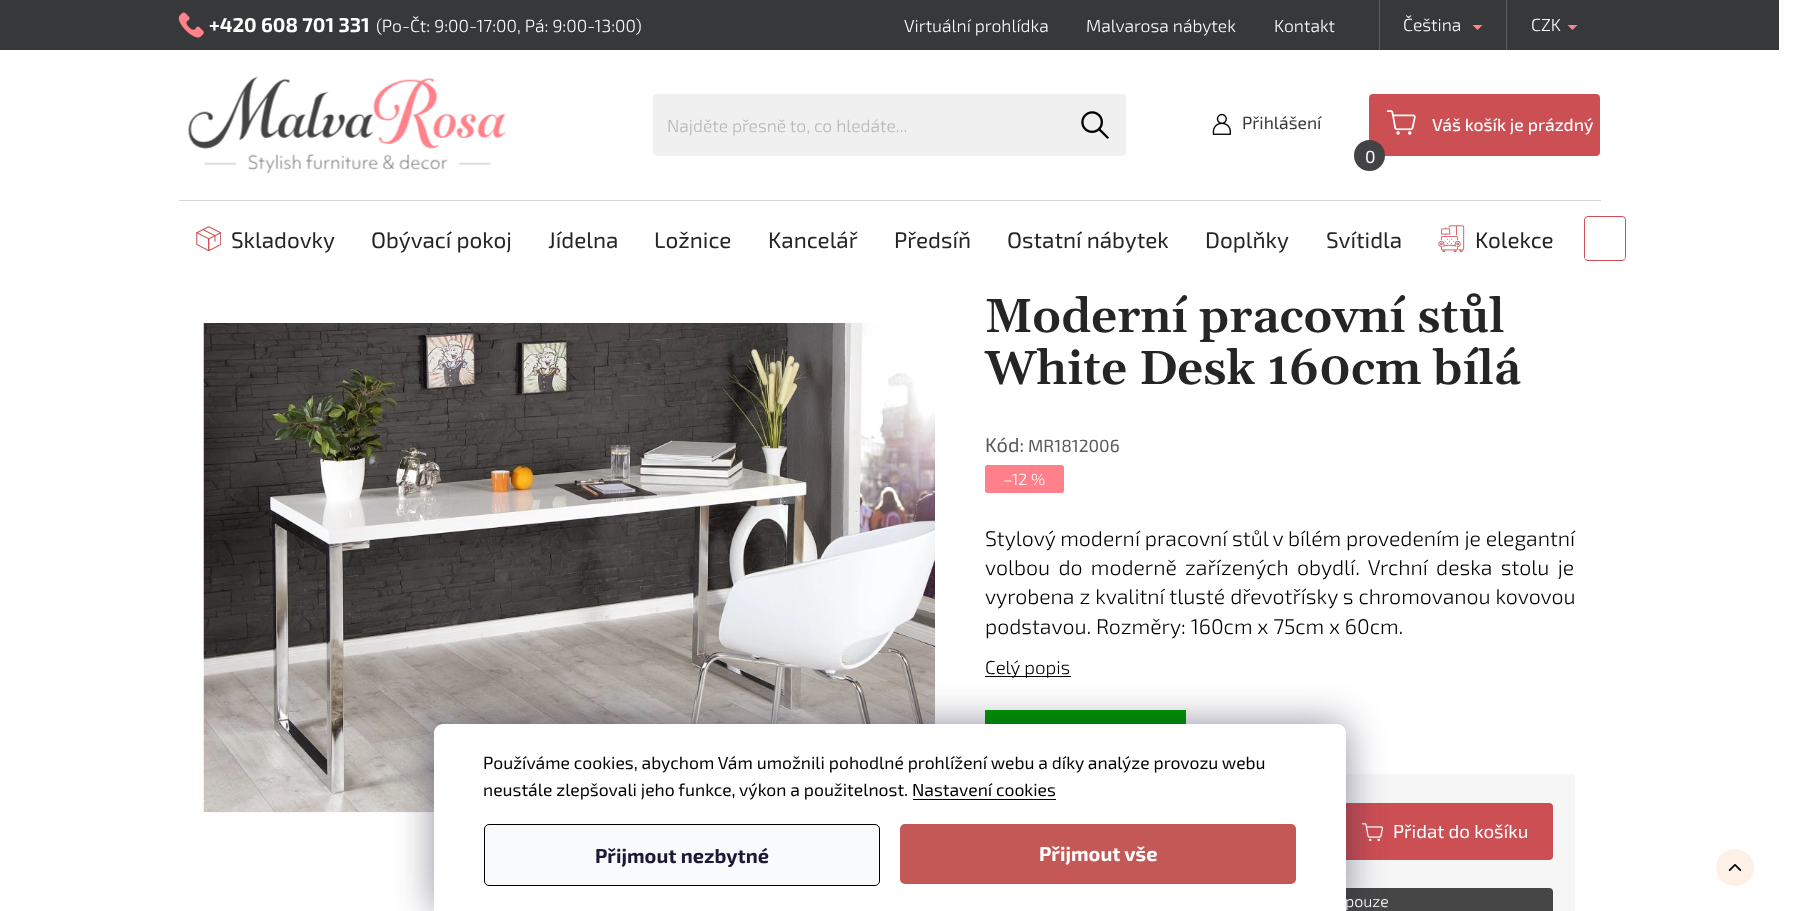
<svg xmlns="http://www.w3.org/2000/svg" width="1797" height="911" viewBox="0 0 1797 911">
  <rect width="100%" height="100%" fill="#fff"/>
  <path d="M0 0h1779v50H0z" fill="#373839"/>
  <image x="178" y="12" width="26" height="26" href="img/1.png"/>
  <path d="M1506 0h1v50H1506z" fill="#5e5e5e"/>
  <path d="M1379 0h1v50H1379z" fill="#5e5e5e"/>
  <path d="M1472.5 25H1482.5L1477.5 30Z" fill="#f5898b"/>
  <path d="M1567.5 25H1577.5L1572.5 30Z" fill="#f5898b"/>
  <image x="188" y="76" width="319" height="98" href="img/2.png"/>
  <rect x="653" y="94" width="473" height="62" rx="4" fill="#f0f0f0"/>
  <image x="1081" y="111" width="28" height="28" href="img/3.png"/>
  <image x="1212" y="113" width="19" height="22" href="img/4.png"/>
  <rect x="1369" y="94" width="231" height="62" rx="4" fill="#cc4f54"/>
  <image x="1386" y="110" width="30" height="25" href="img/5.png"/>
  <circle cx="1369.5" cy="155.5" r="15.5" fill="#434345"/>
  <path d="M179 200h1422v1H179z" fill="#d6d6d6"/>
  <image x="196" y="226" width="25" height="25" href="img/6.png"/>
  <image x="1438" y="225" width="27" height="28" href="img/7.png"/>
  <rect x="1584.5" y="216.5" width="41" height="44" rx="3.5" fill="none" stroke="#cc4f54"/>
  <path d="M1585 219h40v40H1585z" fill="#fff"/>
  <image x="203" y="321" width="732" height="493" href="img/8.png"/>
  <path d="M985 676h86v1H985z" fill="#000"/>
  <path d="M985 710h201v14H985z" fill="#009901"/>
  <path d="M1346 774h229v137H1346z" fill="#f6f6f6"/>
  <rect x="1334" y="803" width="219" height="57" rx="4" fill="#cc4f54"/>
  <image x="1361" y="823" width="23" height="19" href="img/9.png"/>
  <rect x="1008" y="888" width="545" height="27" rx="4" fill="#474647"/>
  <rect x="434" y="724" width="912" height="187" rx="9" fill="#1b193980" filter="blur(19px)"/>
  <path d="M443 724H1337C1342 724 1346 728 1346 733V911H434V733C434 728 438 724 443 724Z" fill="#fff"/>
  <path d="M913 799h143v1H913z" fill="#000"/>
  <rect x="484.5" y="824.5" width="395" height="61" rx="4.5" fill="#f8fafb" stroke="#000"/>
  <rect x="900" y="824" width="396" height="60" rx="5" fill="#c35857"/>
  <rect x="985" y="465" width="79" height="28" rx="2.5" fill="#ff808b"/>
  <rect x="1716" y="849" width="38" height="37" rx="18.5" fill="#fdf1e7"/>
  <image x="1728" y="864" width="14" height="8" href="img/10.png"/>
  <text x="209" y="32" font-family="'Exo 2'" font-size="20" font-weight="bold" fill="#fff">+420 608 701 331</text>
  <g font-family="'Exo 2'" font-size="17.5" font-weight="300" fill="#fff">
    <text x="376" y="32">(Po-Čt: 9:00-17:00, Pá: 9:00-13:00)</text>
    <text x="904" y="32">Virtuální prohlídka</text>
    <text x="1086" y="32">Malvarosa nábytek</text>
    <text x="1274" y="32">Kontakt</text>
    <text x="1403" y="31">Čeština</text>
    <text x="1531" y="31">CZK</text>
  </g>
  <text x="667" y="132" font-family="'Exo 2'" font-size="17.5" font-weight="300" fill="#b6b6b6">Najděte přesně to, co hledáte...</text>
  <text x="1242" y="129" font-family="'Exo 2'" font-size="17.5" fill="#373839">Přihlášení</text>
  <text x="1432" y="131" font-family="'Exo 2'" font-size="17.5" font-weight="500" fill="#fff">Váš košík je prázdný</text>
  <text x="1365" y="163" font-family="'Exo 2'" font-size="17.5" fill="#fff">0</text>
  <g font-family="'Exo 2'" font-size="22.5" fill="#252525">
    <text x="231" y="248">Skladovky</text>
    <text x="371" y="248">Obývací pokoj</text>
    <text x="548" y="248">Jídelna</text>
    <text x="654" y="248">Ložnice</text>
    <text x="768" y="248">Kancelář</text>
    <text x="894" y="248">Předsíň</text>
    <text x="1007" y="248">Ostatní nábytek</text>
    <text x="1205" y="248">Doplňky</text>
    <text x="1326" y="248">Svítidla</text>
    <text x="1475" y="248">Kolekce</text>
  </g>
  <g font-family="'Exo 2'" font-size="17.5" fill="#000">
    <text x="483" y="769">Používáme cookies, abychom Vám umožnili pohodlné prohlížení webu a díky analýze provozu webu</text>
    <text x="483" y="796">neustále zlepšovali jeho funkce, výkon a použitelnost. Nastavení cookies</text>
  </g>
  <text x="595" y="863" font-family="'Exo 2'" font-size="20" font-weight="bold" fill="#1a1937">Přijmout nezbytné</text>
  <text x="1039" y="861" font-family="'Exo 2'" font-size="20" font-weight="bold" fill="#fff">Přijmout vše</text>
  <g font-family="Gelasio" font-size="47.5" font-weight="600" fill="#252525">
    <text x="985" y="332">Moderní pracovní stůl</text>
    <text x="985" y="384">White Desk 160cm bílá</text>
  </g>
  <text x="985" y="452" font-family="'Exo 2'" font-size="20" fill="#595959">Kód:</text>
  <text x="1028" y="452" font-family="'Exo 2'" font-size="17.5" fill="#595959">MR1812006</text>
  <text x="1003" y="485" font-family="'Exo 2'" font-size="16" font-weight="300" fill="#fff">–12 %</text>
  <g font-family="'Exo 2'" font-size="21.25" font-weight="300" fill="#000">
    <text x="985" y="546">Stylový moderní pracovní stůl v bílém provedením je elegantní</text>
    <text x="985" y="575" word-spacing="3.5">volbou do moderně zařízených obydlí. Vrchní deska stolu je</text>
    <text x="985" y="604" word-spacing="0.25">vyrobena z kvalitní tlusté dřevotřísky s chromovanou kovovou</text>
    <text x="985" y="634">podstavou. Rozměry: 160cm x 75cm x 60cm.</text>
  </g>
  <text x="985" y="674" font-family="'Exo 2'" font-size="18.75" font-weight="300" fill="#000">Celý popis</text>
  <text x="1393" y="838" font-family="'Exo 2'" font-size="18.75" fill="#fff">Přidat do košíku</text>
  <text x="1345" y="907" font-family="'Exo 2'" font-size="16" font-weight="300" fill="#fff">pouze</text>
</svg>
